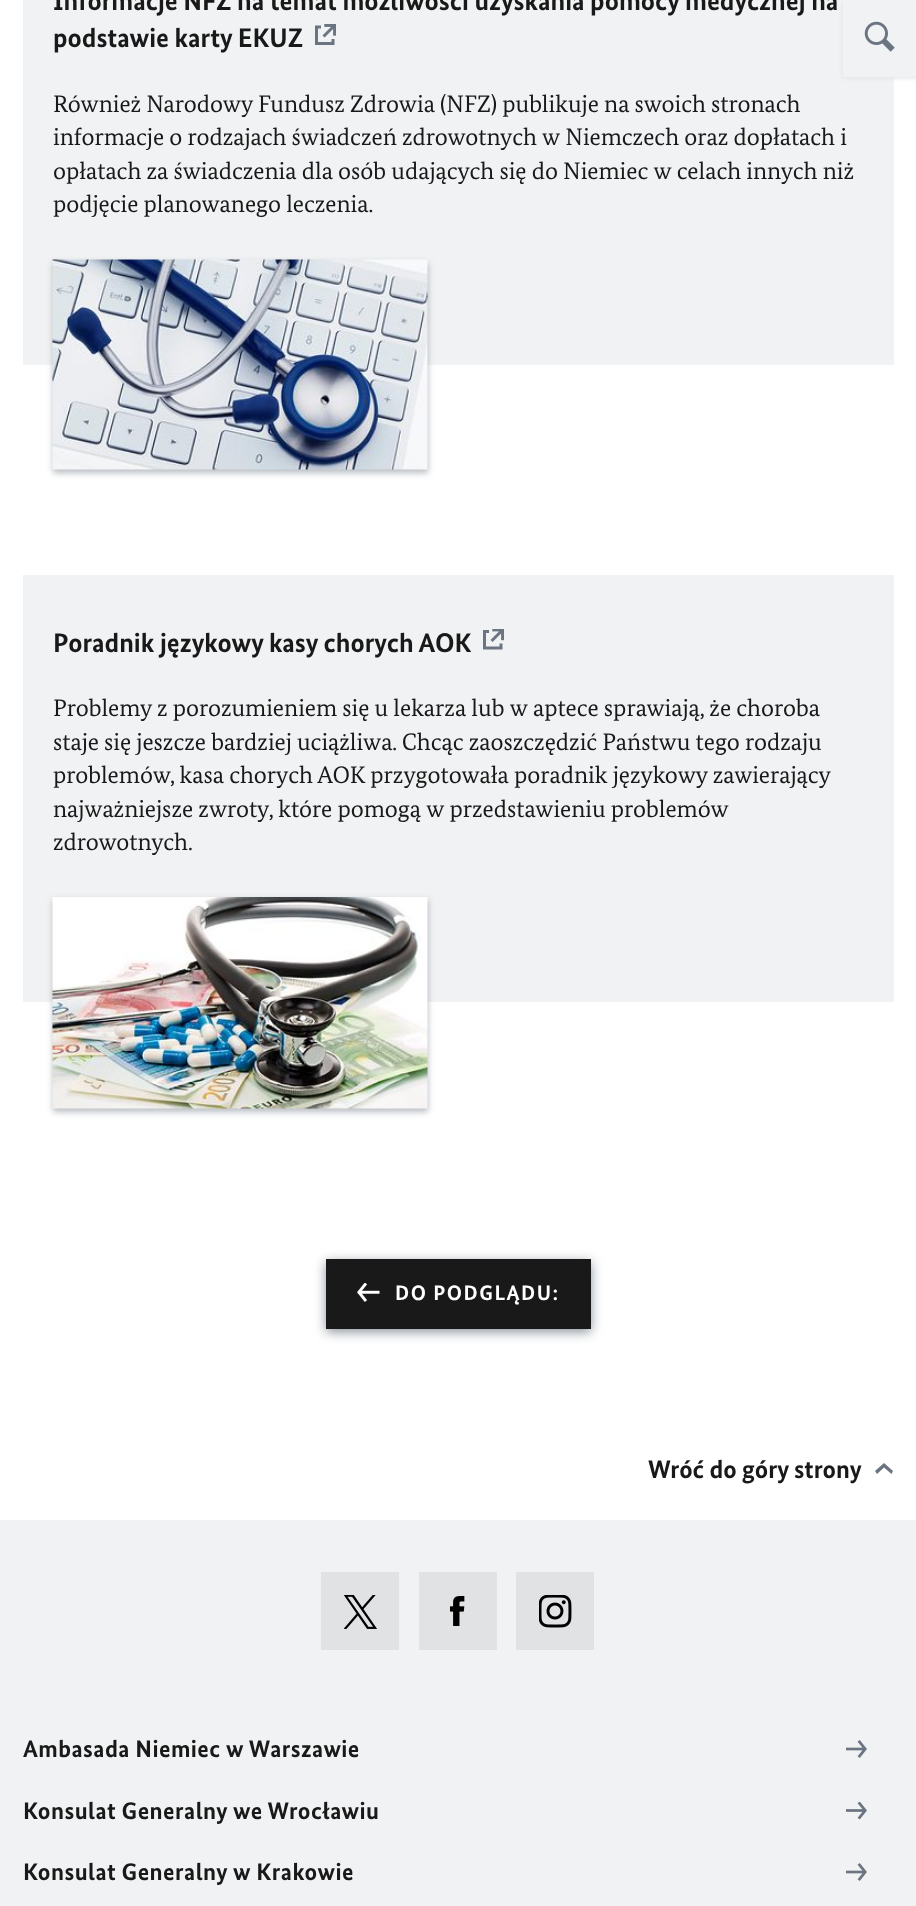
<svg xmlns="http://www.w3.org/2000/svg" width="916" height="1906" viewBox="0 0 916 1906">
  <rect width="100%" height="100%" fill="#fff"/>
  <path d="M23 0h871v365H23z" fill="#f1f2f3"/>
  <image x="315" y="24" width="21" height="21" href="img/1.png"/>
  <path d="M53 263h375v210H53z" fill="#89919a99" filter="blur(3px)"/>
  <image x="52" y="259" width="376" height="211" href="img/2.png"/>
  <path d="M23 575h871v427H23z" fill="#f1f2f3"/>
  <image x="483" y="629" width="21" height="21" href="img/3.png"/>
  <path d="M53 900h375v212H53z" fill="#89919a99" filter="blur(3px)"/>
  <image x="52" y="897" width="376" height="212" href="img/4.png"/>
  <path d="M326 1262h265v70H326z" fill="#89919a" filter="blur(6px)"/>
  <path d="M326 1259h265v70H326z" fill="#191919"/>
  <image x="357" y="1283" width="23" height="19" href="img/5.png"/>
  <path d="M884 1467.5L891.5 1474L893 1471L884 1463L875 1471L877 1474" fill="#6b7581"/>
  <path d="M0 1520h916v386H0z" fill="#f1f2f3"/>
  <path d="M321 1572h78v78H321z" fill="#e0e2e4"/>
  <image x="344" y="1595" width="33" height="34" href="img/6.png"/>
  <path d="M419 1572h78v78H419z" fill="#e0e2e4"/>
  <image x="450" y="1596" width="15" height="30" href="img/7.png"/>
  <path d="M516 1572h78v78H516z" fill="#e0e2e4"/>
  <image x="539" y="1595" width="33" height="33" href="img/8.png"/>
  <image x="846" y="1740" width="21" height="18" href="img/9.png"/>
  <image x="846" y="1802" width="21" height="18" href="img/10.png"/>
  <image x="846" y="1863" width="21" height="18" href="img/9.png"/>
  <path d="M843 2h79v76H843z" fill="#e0e2e4" filter="blur(2px)"/>
  <path d="M843 0h73v77H843z" fill="#f1f2f3"/>
  <image x="864" y="21" width="31" height="31" href="img/11.png"/>
  <g font-family="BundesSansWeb" font-size="27" font-weight="bold" fill="#191919">
    <text x="53" y="10">Informacje NFZ na temat mozliwości uzyskania pomocy medycznej na</text>
    <text x="53" y="47">podstawie karty EKUZ</text>
  </g>
  <g font-family="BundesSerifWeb" font-size="24" fill="#191919">
    <text x="53" y="112">Również Narodowy Fundusz Zdrowia (NFZ) publikuje na swoich stronach</text>
    <text x="53" y="145">informacje o rodzajach świadczeń zdrowotnych w Niemczech oraz dopłatach i</text>
    <text x="53" y="179">opłatach za świadczenia dla osób udających się do Niemiec w celach innych niż</text>
    <text x="53" y="212">podjęcie planowanego leczenia.</text>
  </g>
  <text x="53" y="652" font-family="BundesSansWeb" font-size="27" font-weight="bold" fill="#191919">Poradnik językowy kasy chorych AOK</text>
  <g font-family="BundesSerifWeb" font-size="24" fill="#191919">
    <text x="53" y="716">Problemy z porozumieniem się u lekarza lub w aptece sprawiają, że choroba</text>
    <text x="53" y="750">staje się jeszcze bardziej uciążliwa. Chcąc zaoszczędzić Państwu tego rodzaju</text>
    <text x="53" y="783">problemów, kasa chorych AOK przygotowała poradnik językowy zawierający</text>
    <text x="53" y="817">najważniejsze zwroty, które pomogą w przedstawieniu problemów</text>
    <text x="53" y="850">zdrowotnych.</text>
  </g>
  <text x="395" y="1300" font-family="BundesSansWeb" font-size="21" font-weight="bold" letter-spacing="1.5" fill="#fff">DO PODGLĄDU:</text>
  <text x="648" y="1478" font-family="BundesSansWeb" font-size="25.5" font-weight="bold" fill="#191919">Wróć do góry strony</text>
  <g font-family="BundesSansWeb" font-size="24" font-weight="bold" letter-spacing="0.45" fill="#191919">
    <text x="23" y="1757">Ambasada Niemiec w Warszawie</text>
    <text x="23" y="1819">Konsulat Generalny we Wrocławiu</text>
    <text x="23" y="1880">Konsulat Generalny w Krakowie</text>
  </g>
</svg>
